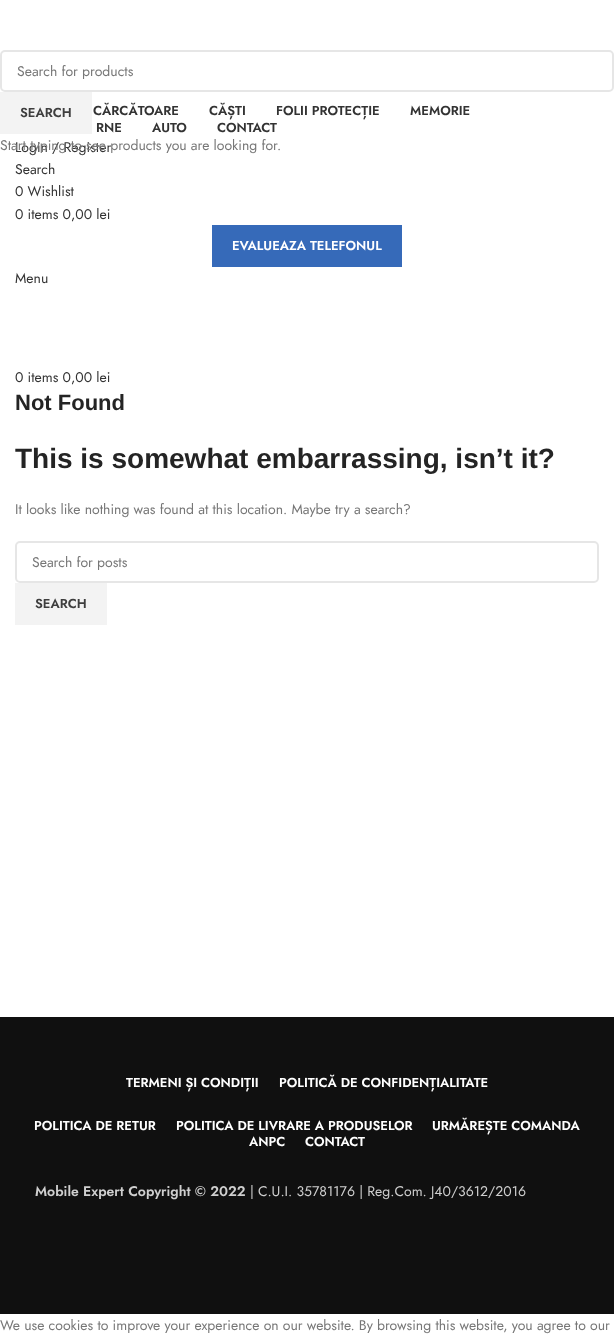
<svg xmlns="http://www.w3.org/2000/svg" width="614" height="1338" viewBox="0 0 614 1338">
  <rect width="100%" height="100%" fill="#fff"/>
  <rect x="1" y="51" width="612" height="40" rx="4" fill="none" stroke="#e6e6e6" stroke-width="2"/>
  <path d="M0 92h92v42H0z" fill="#f3f3f3"/>
  <path d="M212 225h190v42H212z" fill="#366ab9"/>
  <rect x="16" y="542" width="582" height="40" rx="4" fill="none" stroke="#e6e6e6" stroke-width="2"/>
  <path d="M15 583h92v42H15z" fill="#f3f3f3"/>
  <path d="M0 1017h614v297H0z" fill="#101010"/>
  <text x="17" y="76" font-family="Jost" font-size="14" fill="#777">Search for products</text>
  <text x="20" y="117" font-family="Jost" font-size="13" font-weight="600" fill="#3e3e3e">SEARCH</text>
  <g font-family="Jost" font-size="13" font-weight="600" fill="#333">
    <text x="93" y="115">CĂRCĂTOARE</text>
    <text x="209" y="115">CĂȘTI</text>
    <text x="276" y="115">FOLII PROTECȚIE</text>
    <text x="410" y="115">MEMORIE</text>
    <text x="96" y="132">RNE</text>
    <text x="152" y="132">AUTO</text>
    <text x="217" y="132">CONTACT</text>
  </g>
  <text x="15" y="152" font-family="Jost" font-size="14" fill="#333">Login / Register</text>
  <text x="0" y="150" font-family="Jost" font-size="14" fill="#777">Start typing to see products you are looking for.</text>
  <g font-family="Jost" font-size="14" fill="#333">
    <text x="15" y="174">Search</text>
    <text x="15" y="196">0 Wishlist</text>
    <text x="15" y="219">0 items 0,00 lei</text>
  </g>
  <text x="232" y="250" font-family="Jost" font-size="13" font-weight="600" fill="#fff">EVALUEAZA TELEFONUL</text>
  <g font-family="Jost" font-size="14" fill="#333">
    <text x="15" y="283">Menu</text>
    <text x="15" y="382">0 items 0,00 lei</text>
  </g>
  <text x="15" y="410" font-family="Liberation Sans" font-size="22" font-weight="bold" fill="#242424">Not Found</text>
  <text x="15" y="468" font-family="Liberation Sans" font-size="28" font-weight="bold" fill="#242424">This is somewhat embarrassing, isn’t it?</text>
  <g font-family="Jost" font-size="14" fill="#777">
    <text x="15" y="514">It looks like nothing was found at this location. Maybe try a search?</text>
    <text x="32" y="567">Search for posts</text>
  </g>
  <text x="35" y="608" font-family="Jost" font-size="13" font-weight="600" fill="#3e3e3e">SEARCH</text>
  <g font-family="Jost" font-size="13" font-weight="600" fill="#fff">
    <text x="126" y="1087">TERMENI ȘI CONDIȚII</text>
    <text x="279" y="1087">POLITICĂ DE CONFIDENȚIALITATE</text>
    <text x="34" y="1130">POLITICA DE RETUR</text>
    <text x="176" y="1130">POLITICA DE LIVRARE A PRODUSELOR</text>
    <text x="432" y="1130">URMĂREȘTE COMANDA</text>
    <text x="249" y="1146">ANPC</text>
    <text x="305" y="1146">CONTACT</text>
  </g>
  <text x="35" y="1196" font-family="Jost" font-size="14" font-weight="600" fill="#cfcfcf">Mobile Expert Copyright © 2022</text>
  <text x="250" y="1196" font-family="Jost" font-size="14" fill="#cfcfcf">| C.U.I. 35781176 | Reg.Com. J40/3612/2016</text>
  <text x="0" y="1330" font-family="Jost" font-size="14" fill="#777">We use cookies to improve your experience on our website. By browsing this website, you agree to our</text>
</svg>
